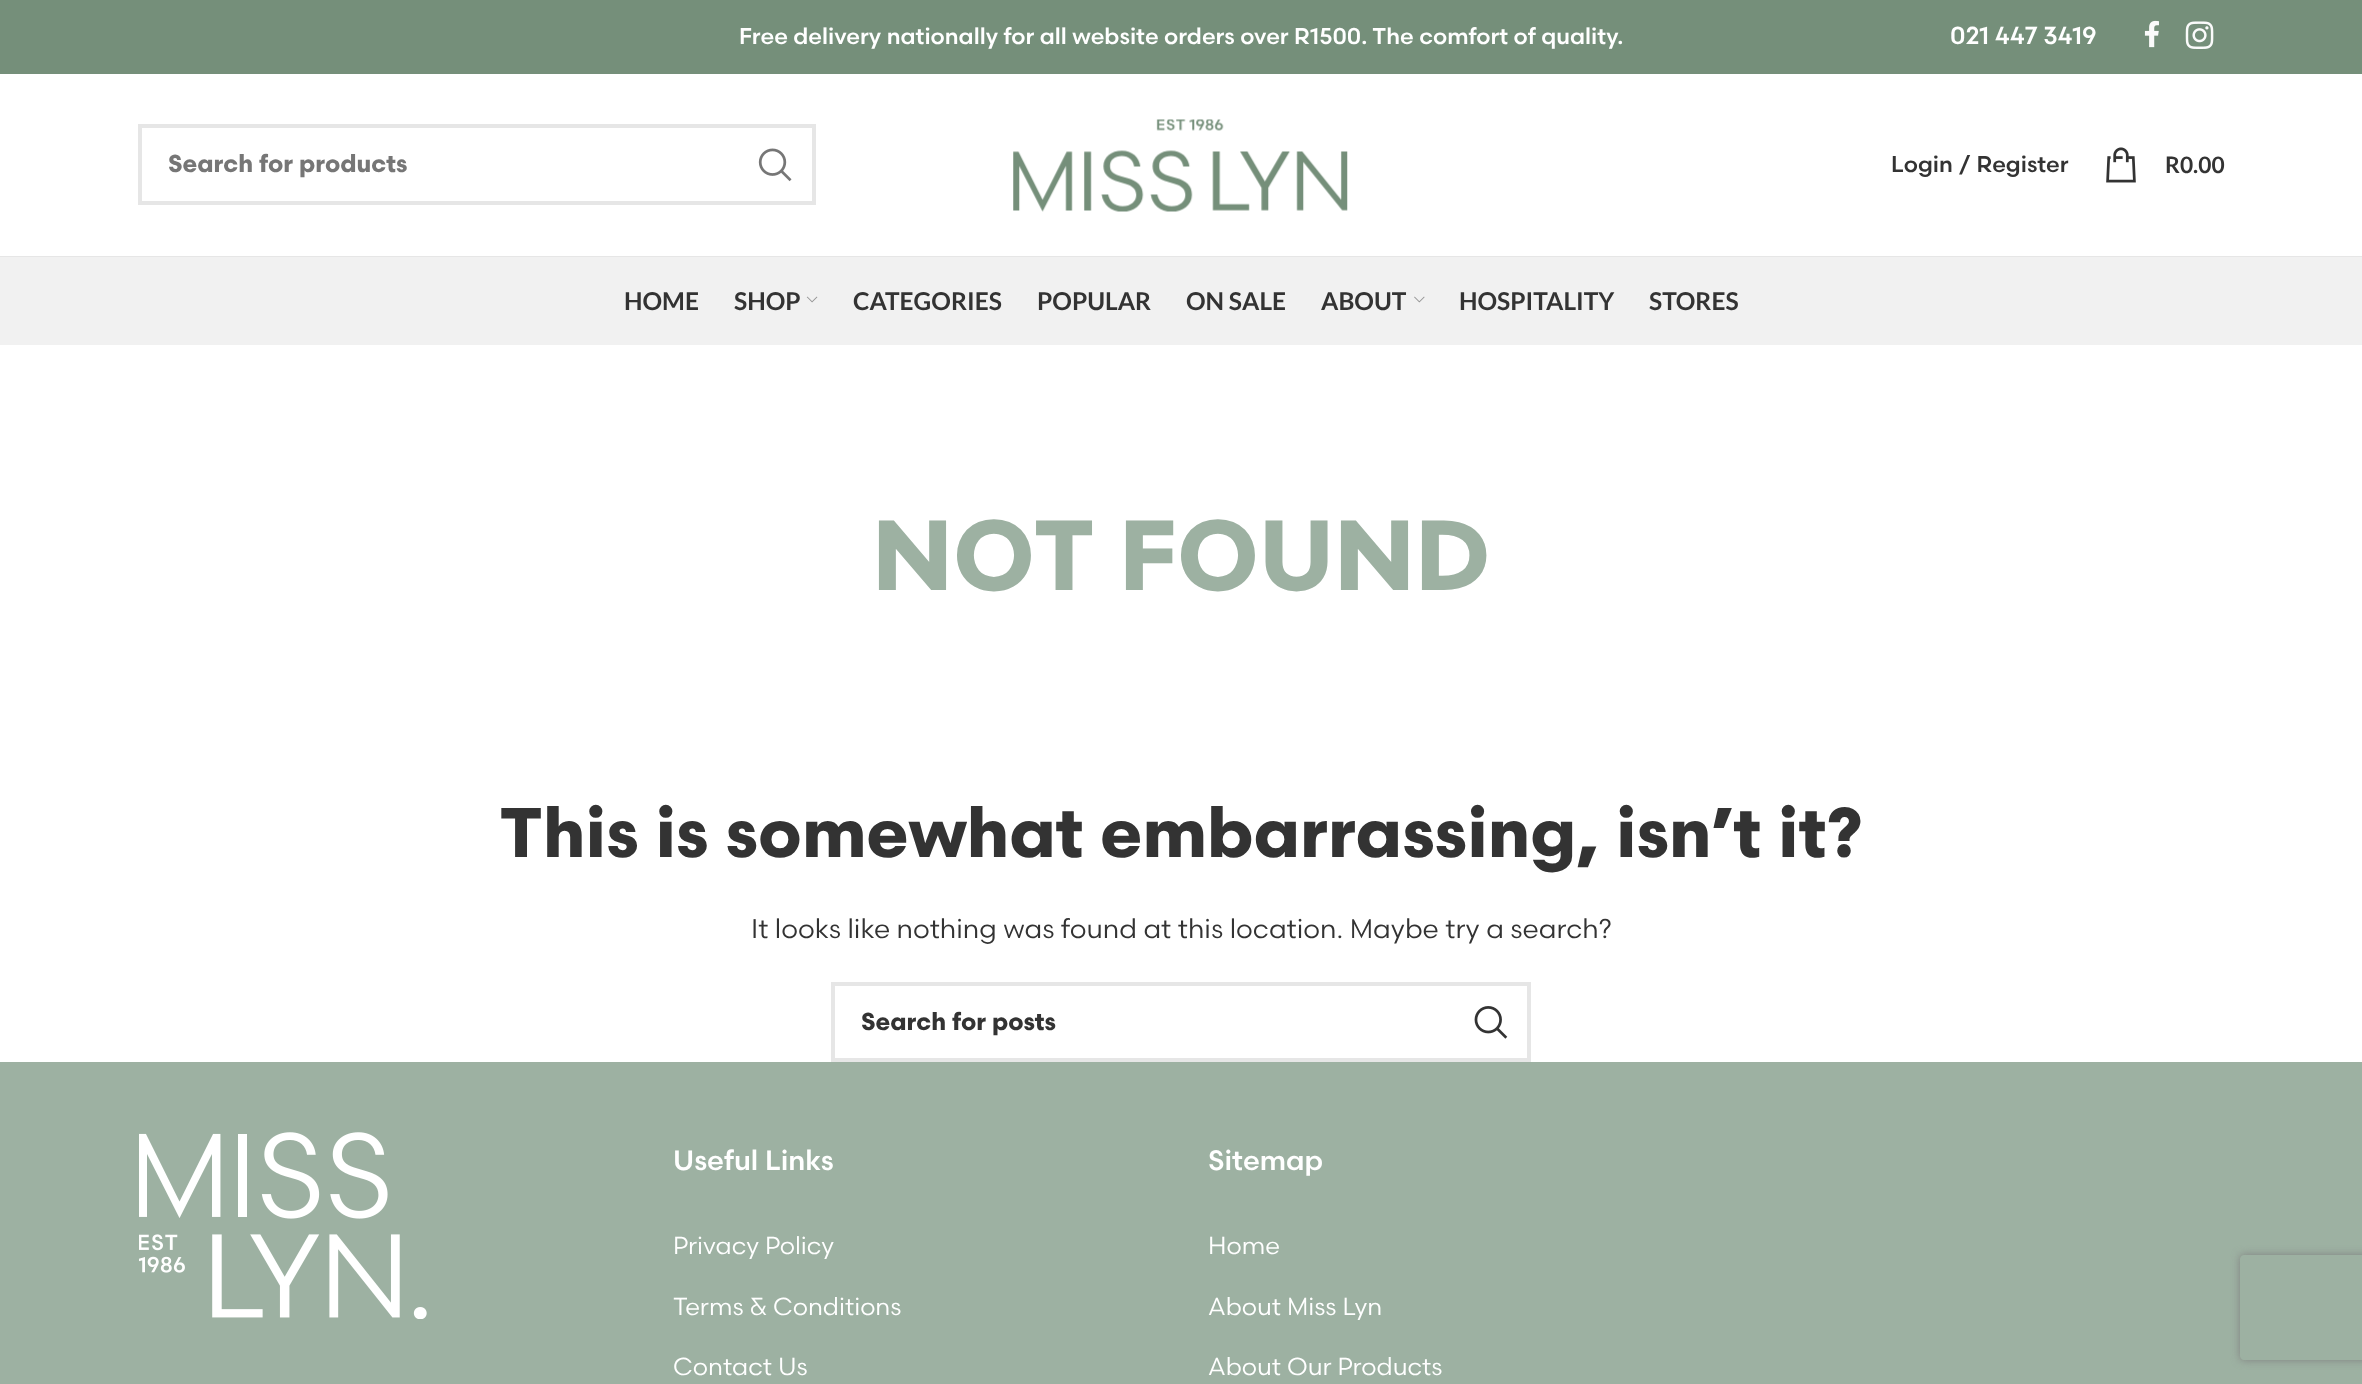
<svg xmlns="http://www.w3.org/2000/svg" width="2362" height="1384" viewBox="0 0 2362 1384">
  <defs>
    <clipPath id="clip1"><path d="M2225 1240H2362V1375H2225ZM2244 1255H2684C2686 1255 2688 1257 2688 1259V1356C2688 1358 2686 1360 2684 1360H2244C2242 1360 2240 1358 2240 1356V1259C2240 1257 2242 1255 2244 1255Z" clip-rule="evenodd"/></clipPath>
  </defs>
  <rect width="100%" height="100%" fill="#fff"/>
  <path d="M0 0h2362v74H0z" fill="#758f7a"/>
  <image x="2144" y="20" width="15" height="28" href="img/1.png"/>
  <image x="2185" y="21" width="29" height="28" href="img/2.png"/>
  <path d="M0 256h2362v1H0z" fill="#e6e6e6"/>
  <path d="M140 126h674v77H140z" fill="none" stroke="#e6e6e6" stroke-width="4"/>
  <image x="758" y="148" width="34" height="34" href="img/3.png"/>
  <image x="1013" y="119" width="335" height="93" href="img/4.png"/>
  <image x="2106" y="147" width="30" height="36" href="img/5.png"/>
  <path d="M0 257h2362v88H0z" fill="#f1f1f1"/>
  <image x="806" y="296" width="12" height="7" href="img/6.png"/>
  <image x="1414" y="296" width="11" height="7" href="img/7.png"/>
  <path d="M833 984h696v76H833z" fill="none" stroke="#e6e6e6" stroke-width="4"/>
  <image x="1474" y="1006" width="34" height="33" href="img/8.png"/>
  <path d="M0 1062h2362v322H0z" fill="#9db1a2"/>
  <image x="139" y="1132" width="288" height="187" href="img/9.png"/>
  <g clip-path="url(#clip1)">
    <rect x="2240" y="1255" width="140" height="105" rx="4" fill="#808080" filter="blur(4.5px)"/>
  </g>
  <text x="739" y="44" font-family="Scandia" font-size="22.75" font-weight="500" fill="#fff">Free delivery nationally for all website orders over R1500. The comfort of quality.</text>
  <text x="1950" y="44" font-family="Scandia" font-size="24.5" font-weight="500" fill="#fff">021 447 3419</text>
  <text x="168" y="172" font-family="Scandia" font-size="24.5" font-weight="bold" fill="#767676">Search for products</text>
  <text x="1891" y="172" font-family="Scandia" font-size="22.75" font-weight="500" fill="#333">Login / Register</text>
  <text x="2165" y="173" font-family="Lato" font-size="22.75" font-weight="bold" fill="#333">R0.00</text>
  <g font-family="Lato" font-size="24.5" font-weight="bold" fill="#333">
    <text x="624" y="310">HOME</text>
    <text x="734" y="310">SHOP</text>
    <text x="853" y="310">CATEGORIES</text>
    <text x="1037" y="310">POPULAR</text>
    <text x="1186" y="310">ON SALE</text>
    <text x="1321" y="310">ABOUT</text>
    <text x="1459" y="310">HOSPITALITY</text>
    <text x="1649" y="310">STORES</text>
  </g>
  <text x="872" y="590" font-family="Scandia" font-size="99.25" font-weight="bold" fill="#9db1a2">NOT FOUND</text>
  <text x="499" y="857" font-family="Scandia" font-size="70" font-weight="bold" fill="#333">This is somewhat embarrassing, isn’t it?</text>
  <text x="751" y="938" font-family="Scandia" font-size="26.95" fill="#333">It looks like nothing was found at this location. Maybe try a search?</text>
  <text x="861" y="1030" font-family="Scandia" font-size="24.5" font-weight="bold" fill="#333">Search for posts</text>
  <text x="673" y="1170" font-family="Scandia" font-size="28" font-weight="500" fill="#fff">Useful Links</text>
  <g font-family="Scandia" font-size="24.5" fill="#fff">
    <text x="673" y="1254">Privacy Policy</text>
    <text x="673" y="1315">Terms &amp; Conditions</text>
    <text x="673" y="1375">Contact Us</text>
  </g>
  <text x="1208" y="1170" font-family="Scandia" font-size="28" font-weight="500" fill="#fff">Sitemap</text>
  <g font-family="Scandia" font-size="24.5" fill="#fff">
    <text x="1208" y="1254">Home</text>
    <text x="1208" y="1315">About Miss Lyn</text>
    <text x="1208" y="1375">About Our Products</text>
  </g>
</svg>
